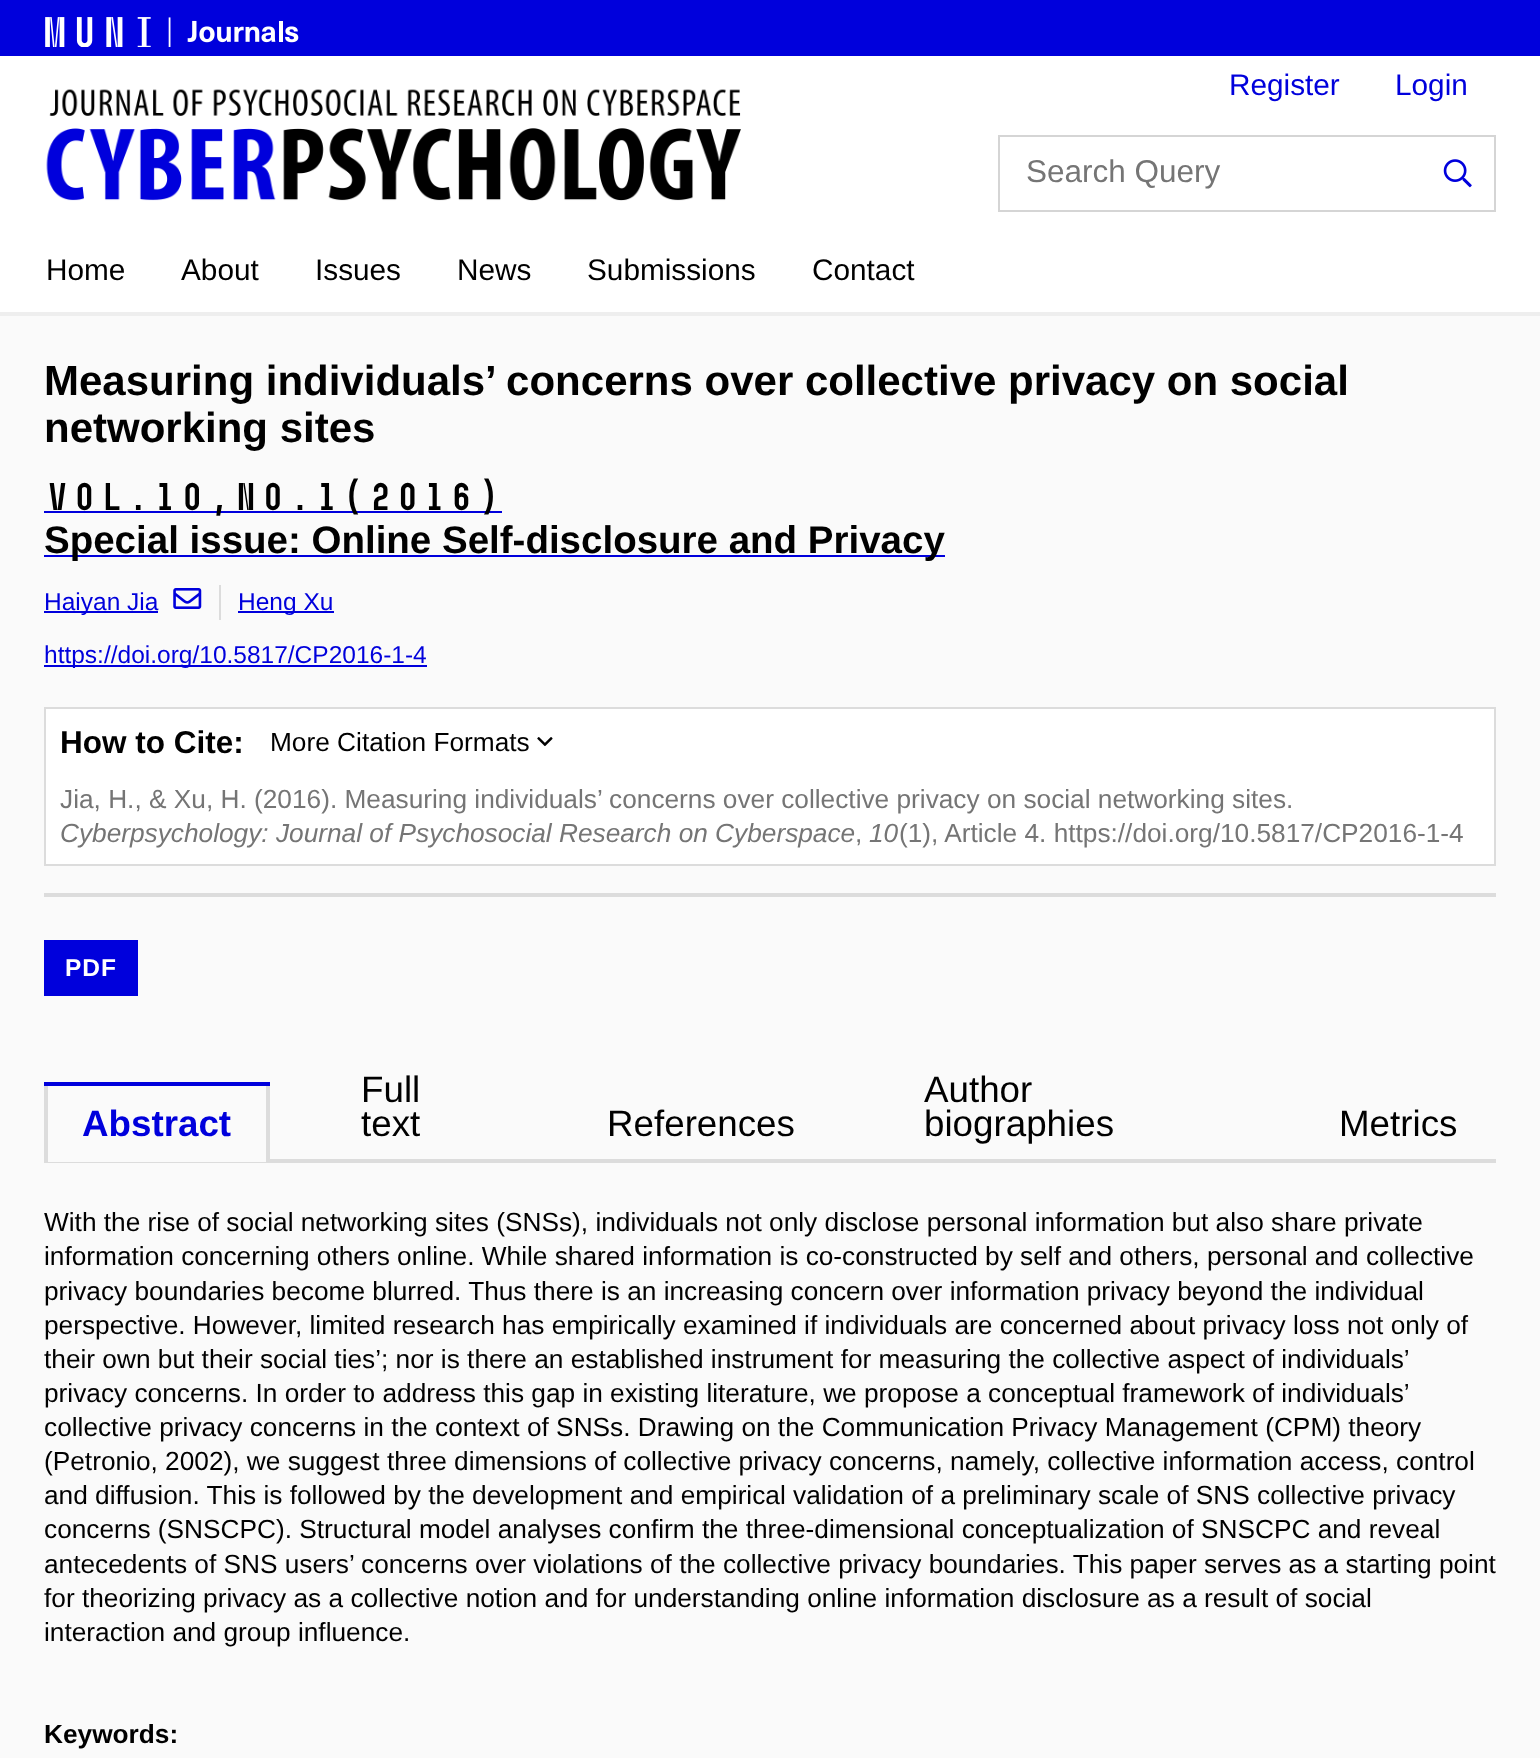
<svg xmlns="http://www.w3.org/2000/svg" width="1540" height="1758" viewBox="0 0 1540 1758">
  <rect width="100%" height="100%" fill="#fafafa"/>
  <path d="M0 56h1540v256H0z" fill="#fff"/>
  <path d="M0 0h1540v56H0z" fill="#0000dc"/>
  <image x="45" y="17" width="254" height="30" href="img/1.png"/>
  <image x="46" y="89" width="695" height="112" href="img/2.png"/>
  <path d="M999 136h496v75H999z" fill="none" stroke="#d5d5d5" stroke-width="2"/>
  <image x="1443" y="159" width="29" height="29" href="img/3.png"/>
  <path d="M0 312h1540v4H0z" fill="#eee"/>
  <path d="M44 511h458v2H44z" fill="#0000dc"/>
  <path d="M44 555h901v2H44z" fill="#0000dc"/>
  <path d="M44 611h114v2H44z" fill="#0000dc"/>
  <image x="173" y="588" width="29" height="21" href="img/4.png"/>
  <path d="M219 585h2v35H219z" fill="#dcdcdc"/>
  <path d="M238 611h96v2H238z" fill="#0000dc"/>
  <path d="M44 665h383v2H44z" fill="#0000dc"/>
  <path d="M45 708h1450v157H45z" fill="#fff" stroke="#dcdcdc" stroke-width="2"/>
  <image x="537" y="737" width="16" height="10" href="img/5.png"/>
  <path d="M44 893h1452v4H44z" fill="#dcdcdc"/>
  <path d="M44 940h94v56H44z" fill="#0000dc"/>
  <path d="M44 1159h1452v4H44z" fill="#dcdcdc"/>
  <path d="M48 1159h218v3H48z" fill="#fafafa"/>
  <path d="M266 1082h4v80H266z" fill="#dcdcdc"/>
  <path d="M44 1082h4v80H44z" fill="#dcdcdc"/>
  <path d="M44 1082h226v4H44z" fill="#0000dc"/>
  <g font-family="Liberation Sans" font-size="29.75" fill="#0000dc">
    <text x="1229" y="95">Register</text>
    <text x="1395" y="95">Login</text>
  </g>
  <text x="1026" y="182" font-family="Liberation Sans" font-size="31.5" fill="#757575">Search Query</text>
  <g font-family="Liberation Sans" font-size="29.75" fill="#000">
    <text x="46" y="280">Home</text>
    <text x="181" y="280">About</text>
    <text x="315" y="280">Issues</text>
    <text x="457" y="280">News</text>
    <text x="587" y="280">Submissions</text>
    <text x="812" y="280">Contact</text>
  </g>
  <g font-family="Liberation Sans" font-size="42" font-weight="bold" fill="#000">
    <text x="44" y="395">Measuring individuals’ concerns over collective privacy on social</text>
    <text x="44" y="442">networking sites</text>
  </g>
  <text x="44" y="510" font-family="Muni" font-size="38.5" font-weight="bold" fill="#000">Vol.10,No.1(2016)</text>
  <text x="44" y="553" font-family="Liberation Sans" font-size="38.5" font-weight="bold" fill="#000">Special issue: Online Self-disclosure and Privacy</text>
  <g font-family="Liberation Sans" font-size="24.5" fill="#0000dc">
    <text x="44" y="610">Haiyan Jia</text>
    <text x="238" y="610">Heng Xu</text>
    <text x="44" y="663">https://doi.org/10.5817/CP2016-1-4</text>
  </g>
  <text x="60" y="753" font-family="Liberation Sans" font-size="31.5" font-weight="bold" fill="#000">How to Cite:</text>
  <text x="270" y="751" font-family="Liberation Sans" font-size="26.25" fill="#000">More Citation Formats</text>
  <text x="60" y="808" font-family="Liberation Sans" font-size="26.25" fill="#757575">Jia, H., &amp; Xu, H. (2016). Measuring individuals’ concerns over collective privacy on social networking sites.</text>
  <text x="60" y="842" font-family="Liberation Sans" font-size="26.25" font-style="italic" fill="#757575">Cyberpsychology: Journal of Psychosocial Research on Cyberspace</text>
  <text x="855" y="842" font-family="Liberation Sans" font-size="26.25" fill="#757575">,</text>
  <text x="869" y="842" font-family="Liberation Sans" font-size="26.25" font-style="italic" fill="#757575">10</text>
  <text x="899" y="842" font-family="Liberation Sans" font-size="26.25" fill="#757575">(1), Article 4. https://doi.org/10.5817/CP2016-1-4</text>
  <text x="65" y="976" font-family="Liberation Sans" font-size="24.5" font-weight="bold" letter-spacing="1" fill="#fff">PDF</text>
  <text x="82" y="1136" font-family="Liberation Sans" font-size="36.75" font-weight="bold" fill="#0000dc">Abstract</text>
  <g font-family="Liberation Sans" font-size="36.75" fill="#000">
    <text x="361" y="1102">Full</text>
    <text x="361" y="1136">text</text>
    <text x="607" y="1136">References</text>
    <text x="924" y="1102">Author</text>
    <text x="924" y="1136">biographies</text>
    <text x="1339" y="1136">Metrics</text>
  </g>
  <g font-family="Liberation Sans" font-size="26.25" fill="#000">
    <text x="44" y="1231">With the rise of social networking sites (SNSs), individuals not only disclose personal information but also share private</text>
    <text x="44" y="1265">information concerning others online. While shared information is co-constructed by self and others, personal and collective</text>
    <text x="44" y="1300">privacy boundaries become blurred. Thus there is an increasing concern over information privacy beyond the individual</text>
    <text x="44" y="1334">perspective. However, limited research has empirically examined if individuals are concerned about privacy loss not only of</text>
    <text x="44" y="1368">their own but their social ties’; nor is there an established instrument for measuring the collective aspect of individuals’</text>
    <text x="44" y="1402">privacy concerns. In order to address this gap in existing literature, we propose a conceptual framework of individuals’</text>
    <text x="44" y="1436">collective privacy concerns in the context of SNSs. Drawing on the Communication Privacy Management (CPM) theory</text>
    <text x="44" y="1470">(Petronio, 2002), we suggest three dimensions of collective privacy concerns, namely, collective information access, control</text>
    <text x="44" y="1504">and diffusion. This is followed by the development and empirical validation of a preliminary scale of SNS collective privacy</text>
    <text x="44" y="1538">concerns (SNSCPC). Structural model analyses confirm the three-dimensional conceptualization of SNSCPC and reveal</text>
    <text x="44" y="1573">antecedents of SNS users’ concerns over violations of the collective privacy boundaries. This paper serves as a starting point</text>
    <text x="44" y="1607">for theorizing privacy as a collective notion and for understanding online information disclosure as a result of social</text>
    <text x="44" y="1641">interaction and group influence.</text>
  </g>
  <text x="44" y="1743" font-family="Liberation Sans" font-size="26.25" font-weight="bold" fill="#000">Keywords:</text>
</svg>
